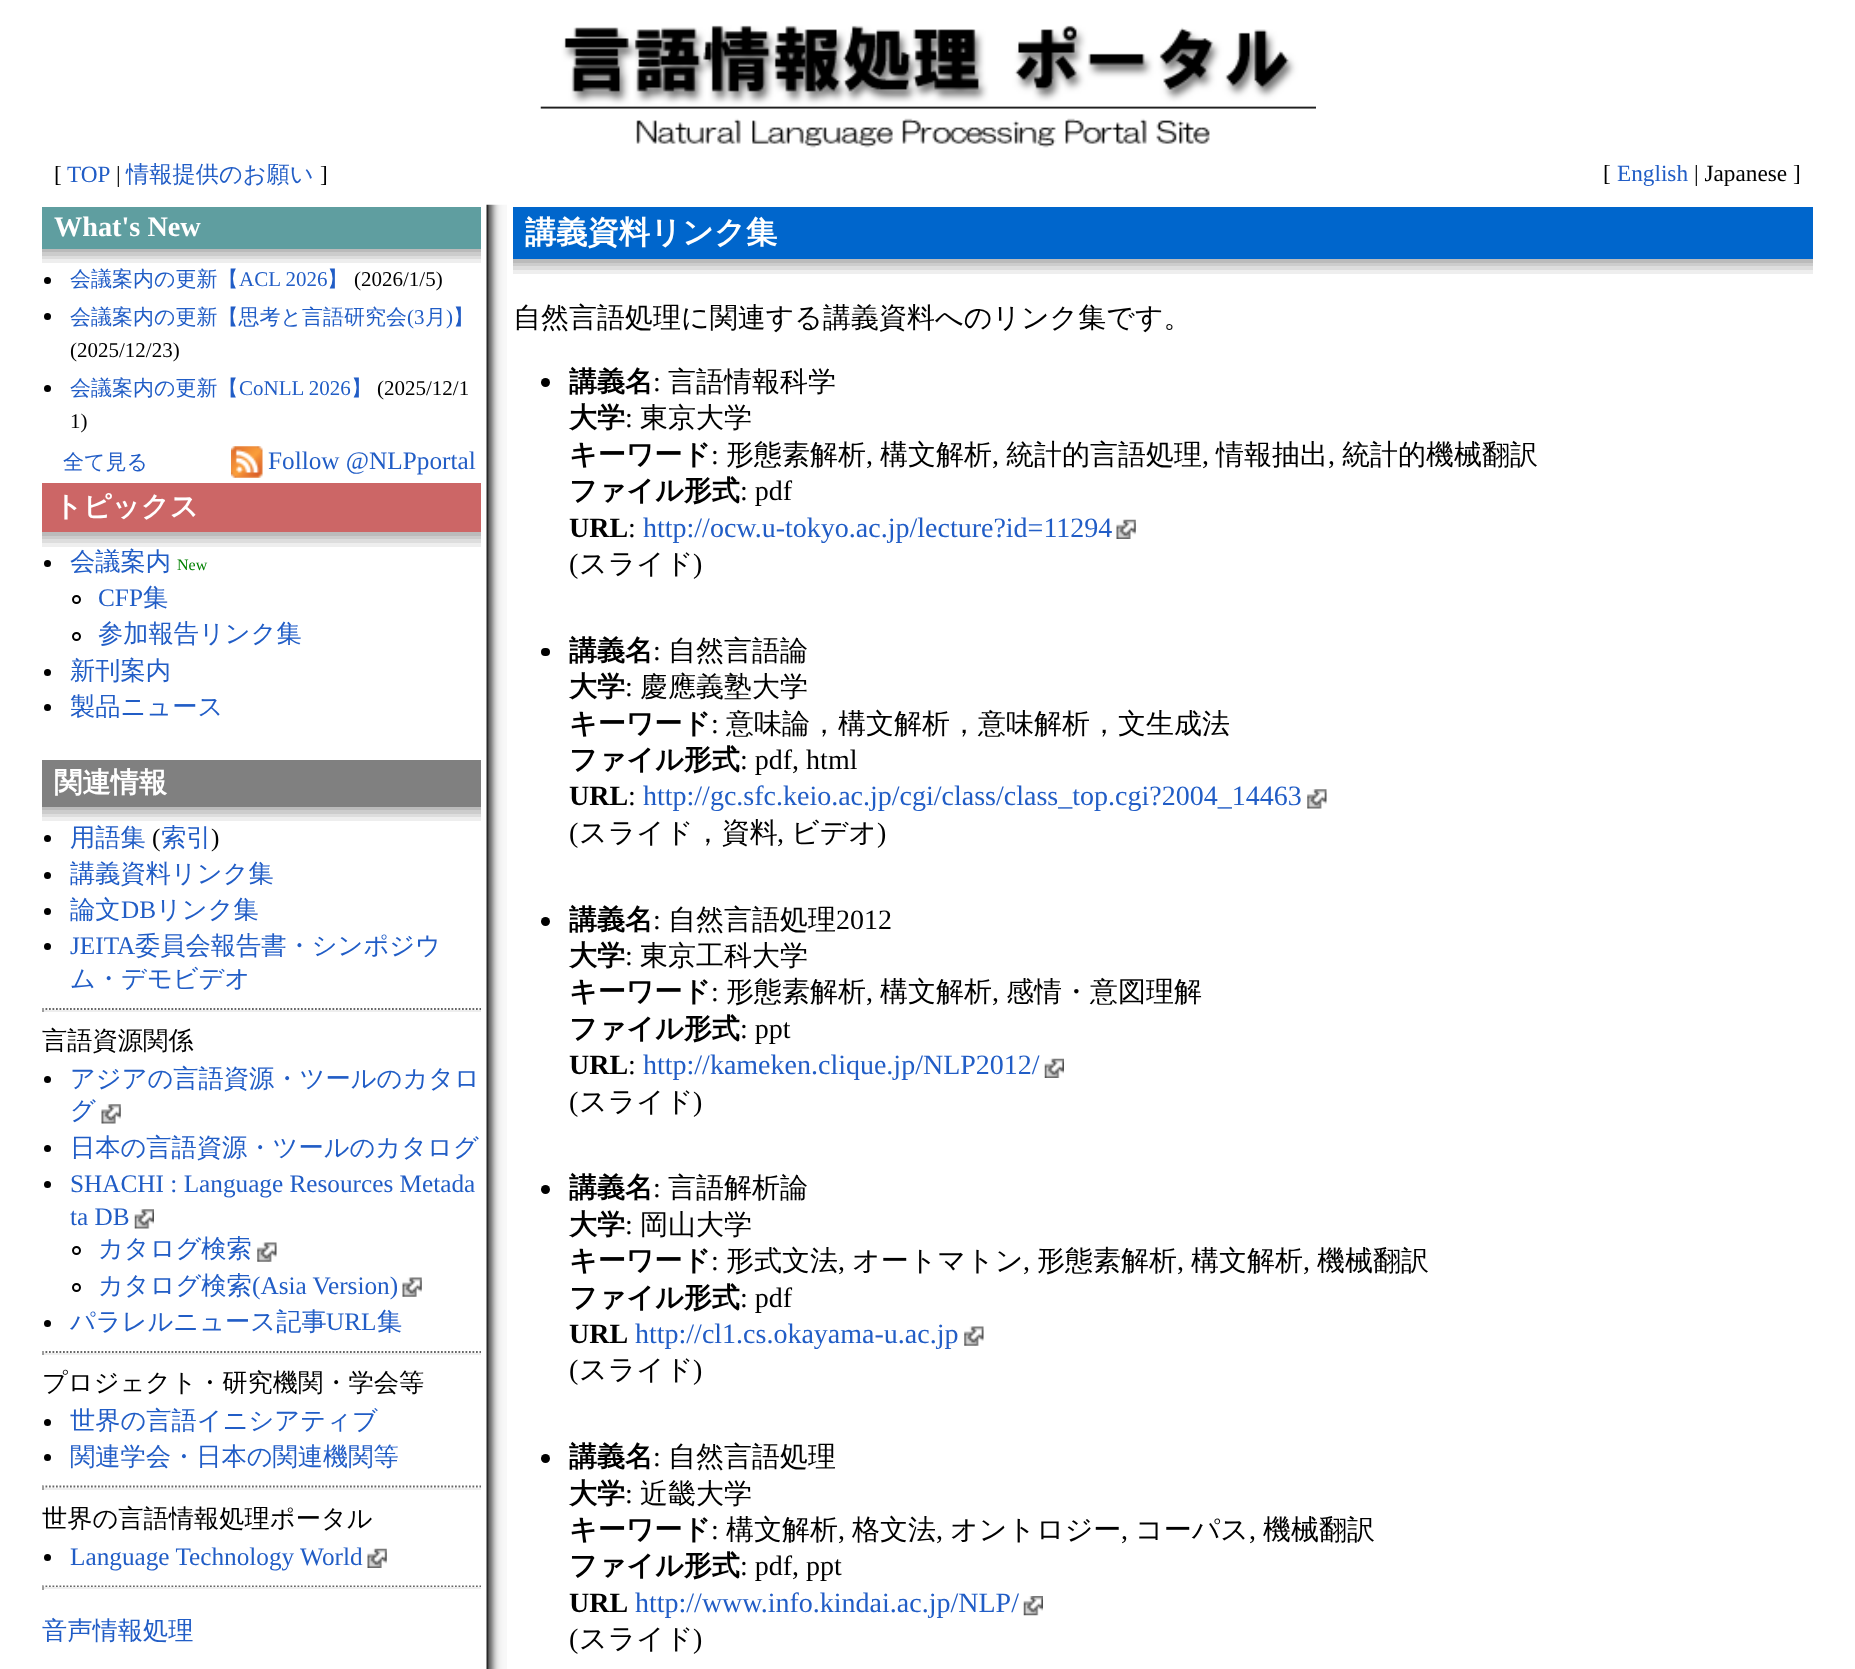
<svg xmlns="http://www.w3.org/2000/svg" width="1855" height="1669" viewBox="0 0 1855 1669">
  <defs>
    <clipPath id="clip1"><path d="M42 207h439v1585H42z"/></clipPath>
  </defs>
  <rect width="100%" height="100%" fill="#fff"/>
  <image x="540" y="25" width="776" height="123" href="img/1.png"/>
  <path d="M42 207h439v42H42z" fill="#5f9ea0"/>
  <path d="M42 249h439v3H42z" fill="#bbb"/>
  <path d="M42 252h439v4H42z" fill="#ccc"/>
  <path d="M42 256h439v3H42z" fill="#ddd"/>
  <path d="M42 259h439v4H42z" fill="#eee"/>
  <circle cx="47.5" cy="280.5" r="3.5" fill="#000"/>
  <circle cx="47.5" cy="316.5" r="3.5" fill="#000"/>
  <circle cx="47.5" cy="388.5" r="3.5" fill="#000"/>
  <image x="231" y="446" width="32" height="32" href="img/2.png"/>
  <path d="M42 483h439v49H42z" fill="#c66"/>
  <path d="M42 532h439v4H42z" fill="#bbb"/>
  <path d="M42 536h439v3H42z" fill="#ccc"/>
  <path d="M42 539h439v4H42z" fill="#ddd"/>
  <path d="M42 543h439v4H42z" fill="#eee"/>
  <circle cx="47.5" cy="563.5" r="3.5" fill="#000"/>
  <circle cx="76.5" cy="599.5" r="3.5" fill="none" stroke="#000" stroke-width="2"/>
  <circle cx="76.5" cy="636.5" r="3.5" fill="none" stroke="#000" stroke-width="2"/>
  <circle cx="47.5" cy="672.5" r="3.5" fill="#000"/>
  <circle cx="47.5" cy="707.5" r="3.5" fill="#000"/>
  <path d="M42 760h439v47H42z" fill="#808080"/>
  <path d="M42 807h439v3H42z" fill="#bbb"/>
  <path d="M42 810h439v4H42z" fill="#ccc"/>
  <path d="M42 814h439v3H42z" fill="#ddd"/>
  <path d="M42 817h439v4H42z" fill="#eee"/>
  <circle cx="47.5" cy="838.5" r="3.5" fill="#000"/>
  <circle cx="47.5" cy="875.5" r="3.5" fill="#000"/>
  <circle cx="47.5" cy="911.5" r="3.5" fill="#000"/>
  <circle cx="47.5" cy="946.5" r="3.5" fill="#000"/>
  <g clip-path="url(#clip1)">
    <path d="M42 1009H485" fill="none" stroke="#666" stroke-width="1.8" stroke-dasharray="1.75 1.75"/>
  </g>
  <path d="M42 1010h439v2H42z" fill="#eee"/>
  <path d="M42 1008h2v4H42z" fill="#9f9f9f"/>
  <circle cx="47.5" cy="1079.5" r="3.5" fill="#000"/>
  <image x="101" y="1104" width="20" height="20" href="img/3.png"/>
  <circle cx="47.5" cy="1148.5" r="3.5" fill="#000"/>
  <circle cx="47.5" cy="1184.5" r="3.5" fill="#000"/>
  <image x="134" y="1209" width="20" height="20" href="img/4.png"/>
  <circle cx="76.5" cy="1250.5" r="3.5" fill="none" stroke="#000" stroke-width="2"/>
  <image x="257" y="1242" width="20" height="20" href="img/5.png"/>
  <circle cx="76.5" cy="1287.5" r="3.5" fill="none" stroke="#000" stroke-width="2"/>
  <image x="402" y="1277" width="20" height="20" href="img/6.png"/>
  <circle cx="47.5" cy="1323.5" r="3.5" fill="#000"/>
  <g clip-path="url(#clip1)">
    <path d="M42 1352H485" fill="none" stroke="#666" stroke-width="1.8" stroke-dasharray="1.75 1.75"/>
  </g>
  <path d="M42 1353h439v2H42z" fill="#eee"/>
  <path d="M42 1351h2v4H42z" fill="#9f9f9f"/>
  <circle cx="47.5" cy="1422.5" r="3.5" fill="#000"/>
  <circle cx="47.5" cy="1457.5" r="3.5" fill="#000"/>
  <g clip-path="url(#clip1)">
    <path d="M42 1486.5H485" fill="none" stroke="#666" stroke-width="1.8" stroke-dasharray="1.75 1.75"/>
  </g>
  <path d="M42 1488h439v2H42z" fill="#eee"/>
  <path d="M42 1486h2v4H42z" fill="#9f9f9f"/>
  <circle cx="47.5" cy="1557.5" r="3.5" fill="#000"/>
  <image x="367" y="1548" width="20" height="20" href="img/7.png"/>
  <g clip-path="url(#clip1)">
    <path d="M42 1586.5H485" fill="none" stroke="#666" stroke-width="1.8" stroke-dasharray="1.75 1.75"/>
  </g>
  <path d="M42 1587h439v2H42z" fill="#eee"/>
  <path d="M42 1586h2v4H42z" fill="#9f9f9f"/>
  <image x="486" y="204" width="21" height="1465" href="img/8.png"/>
  <path d="M513 207h1300v52H513z" fill="#06c"/>
  <path d="M513 259h1300v4H513z" fill="#bbb"/>
  <path d="M513 263h1300v3H513z" fill="#ccc"/>
  <path d="M513 266h1300v4H513z" fill="#ddd"/>
  <path d="M513 270h1300v4H513z" fill="#eee"/>
  <circle cx="545.5" cy="382.5" r="4.5" fill="#000"/>
  <image x="1116" y="519" width="20" height="20" href="img/9.png"/>
  <rect x="541" y="648" width="9" height="8" rx="4" fill="#000"/>
  <image x="1307" y="789" width="20" height="20" href="img/10.png"/>
  <circle cx="545.5" cy="921.5" r="4.5" fill="#000"/>
  <image x="1044" y="1058" width="20" height="20" href="img/11.png"/>
  <circle cx="545.5" cy="1189.5" r="4.5" fill="#000"/>
  <image x="964" y="1326" width="20" height="20" href="img/5.png"/>
  <circle cx="545.5" cy="1458.5" r="4.5" fill="#000"/>
  <image x="1023" y="1596" width="20" height="20" href="img/12.png"/>
  <text x="54" y="182" font-family="Liberation Serif" font-size="23.25" fill="#000">[</text>
  <text x="67" y="182" font-family="Liberation Serif" font-size="23.25" fill="#215dc6">TOP</text>
  <text x="116" y="182" font-family="Liberation Serif" font-size="23.25" fill="#000">|</text>
  <text x="126" y="182" font-family="WenQuanYi Zen Hei" font-size="23.25" font-weight="500" fill="#215dc6">情報提供のお願い</text>
  <g font-family="Liberation Serif" font-size="23.25" fill="#000">
    <text x="320" y="182">]</text>
    <text x="1603" y="181">[</text>
  </g>
  <text x="1617" y="181" font-family="Liberation Serif" font-size="23.25" fill="#215dc6">English</text>
  <text x="1694" y="181" font-family="Liberation Serif" font-size="23.25" fill="#000">| Japanese ]</text>
  <text x="54" y="236" font-family="Liberation Serif" font-size="28.25" font-weight="bold" fill="#fff">What's New</text>
  <text x="70" y="286" font-family="WenQuanYi Zen Hei" font-size="21" font-weight="500" fill="#215dc6">会議案内の更新【</text>
  <text x="239" y="286" font-family="Liberation Serif" font-size="21" fill="#215dc6">ACL 2026</text>
  <text x="327" y="286" font-family="WenQuanYi Zen Hei" font-size="21" font-weight="500" fill="#215dc6">】</text>
  <text x="354" y="286" font-family="Liberation Serif" font-size="21" fill="#000">(2026/1/5)</text>
  <text x="70" y="324" font-family="WenQuanYi Zen Hei" font-size="21" font-weight="500" fill="#215dc6">会議案内の更新【思考と言語研究会</text>
  <text x="407" y="324" font-family="Liberation Serif" font-size="21" fill="#215dc6">(3</text>
  <text x="425" y="324" font-family="WenQuanYi Zen Hei" font-size="21" font-weight="500" fill="#215dc6">月</text>
  <text x="446" y="324" font-family="Liberation Serif" font-size="21" fill="#215dc6">)</text>
  <text x="453" y="324" font-family="WenQuanYi Zen Hei" font-size="21" font-weight="500" fill="#215dc6">】</text>
  <text x="70" y="357" font-family="Liberation Serif" font-size="21" fill="#000">(2025/12/23)</text>
  <text x="70" y="395" font-family="WenQuanYi Zen Hei" font-size="21" font-weight="500" fill="#215dc6">会議案内の更新【</text>
  <text x="239" y="395" font-family="Liberation Serif" font-size="21" fill="#215dc6">CoNLL 2026</text>
  <text x="351" y="395" font-family="WenQuanYi Zen Hei" font-size="21" font-weight="500" fill="#215dc6">】</text>
  <g font-family="Liberation Serif" font-size="21" fill="#000">
    <text x="377" y="395">(2025/12/1</text>
    <text x="70" y="428">1)</text>
  </g>
  <text x="63" y="469" font-family="WenQuanYi Zen Hei" font-size="21" font-weight="500" fill="#215dc6">全て見る</text>
  <text x="268" y="469" font-family="Liberation Serif" font-size="25.25" fill="#215dc6">Follow @NLPportal</text>
  <text x="54" y="516" font-family="WenQuanYi Zen Hei" font-size="28.25" font-weight="bold" fill="#fff">トピックス</text>
  <text x="70" y="570" font-family="WenQuanYi Zen Hei" font-size="25.25" font-weight="500" fill="#215dc6">会議案内</text>
  <text x="177" y="570" font-family="Liberation Serif" font-size="16" fill="#008000">New</text>
  <text x="98" y="606" font-family="Liberation Serif" font-size="25.25" fill="#215dc6">CFP</text>
  <g font-family="WenQuanYi Zen Hei" font-size="25.25" font-weight="500" fill="#215dc6">
    <text x="143" y="606">集</text>
    <text x="98" y="642">参加報告リンク集</text>
    <text x="70" y="679">新刊案内</text>
    <text x="70" y="715">製品ニュース</text>
  </g>
  <text x="54" y="792" font-family="WenQuanYi Zen Hei" font-size="28.25" font-weight="bold" fill="#fff">関連情報</text>
  <text x="70" y="846" font-family="WenQuanYi Zen Hei" font-size="25.25" font-weight="500" fill="#215dc6">用語集</text>
  <text x="152" y="846" font-family="Liberation Serif" font-size="25.25" fill="#000">(</text>
  <text x="161" y="846" font-family="WenQuanYi Zen Hei" font-size="25.25" font-weight="500" fill="#215dc6">索引</text>
  <text x="211" y="846" font-family="Liberation Serif" font-size="25.25" fill="#000">)</text>
  <g font-family="WenQuanYi Zen Hei" font-size="25.25" font-weight="500" fill="#215dc6">
    <text x="70" y="882">講義資料リンク集</text>
    <text x="70" y="918">論文</text>
  </g>
  <text x="121" y="918" font-family="Liberation Serif" font-size="25.25" fill="#215dc6">DB</text>
  <text x="156" y="918" font-family="WenQuanYi Zen Hei" font-size="25.25" font-weight="500" fill="#215dc6">リンク集</text>
  <text x="70" y="954" font-family="Liberation Serif" font-size="25.25" fill="#215dc6">JEITA</text>
  <g font-family="WenQuanYi Zen Hei" font-size="25.25" font-weight="500" fill="#215dc6">
    <text x="135" y="954">委員会報告書・シンポジウ</text>
    <text x="70" y="987">ム・デモビデオ</text>
  </g>
  <text x="42" y="1049" font-family="WenQuanYi Zen Hei" font-size="25.25" font-weight="500" fill="#000">言語資源関係</text>
  <g font-family="WenQuanYi Zen Hei" font-size="25.25" font-weight="500" fill="#215dc6">
    <text x="70" y="1087">アジアの言語資源・ツールのカタロ</text>
    <text x="70" y="1119">グ</text>
    <text x="70" y="1156">日本の言語資源・ツールのカタログ</text>
  </g>
  <g font-family="Liberation Serif" font-size="25.25" fill="#215dc6">
    <text x="70" y="1192">SHACHI : Language Resources Metada</text>
    <text x="70" y="1225">ta DB</text>
  </g>
  <g font-family="WenQuanYi Zen Hei" font-size="25.25" font-weight="500" fill="#215dc6">
    <text x="98" y="1257">カタログ検索</text>
    <text x="98" y="1294">カタログ検索</text>
  </g>
  <text x="252" y="1294" font-family="Liberation Serif" font-size="25.25" fill="#215dc6">(Asia Version)</text>
  <text x="70" y="1330" font-family="WenQuanYi Zen Hei" font-size="25.25" font-weight="500" fill="#215dc6">パラレルニュース記事</text>
  <text x="326" y="1330" font-family="Liberation Serif" font-size="25.25" fill="#215dc6">URL</text>
  <text x="377" y="1330" font-family="WenQuanYi Zen Hei" font-size="25.25" font-weight="500" fill="#215dc6">集</text>
  <text x="42" y="1391" font-family="WenQuanYi Zen Hei" font-size="25.25" font-weight="500" fill="#000">プロジェクト・研究機関・学会等</text>
  <g font-family="WenQuanYi Zen Hei" font-size="25.25" font-weight="500" fill="#215dc6">
    <text x="70" y="1429">世界の言語イニシアティブ</text>
    <text x="70" y="1465">関連学会・日本の関連機関等</text>
  </g>
  <text x="42" y="1527" font-family="WenQuanYi Zen Hei" font-size="25.25" font-weight="500" fill="#000">世界の言語情報処理ポータル</text>
  <text x="70" y="1565" font-family="Liberation Serif" font-size="25.25" fill="#215dc6">Language Technology World</text>
  <text x="42" y="1639" font-family="WenQuanYi Zen Hei" font-size="25.25" font-weight="500" fill="#215dc6">音声情報処理</text>
  <text x="525" y="243" font-family="WenQuanYi Zen Hei" font-size="31.25" font-weight="bold" fill="#fff">講義資料リンク集</text>
  <text x="513" y="327" font-family="WenQuanYi Zen Hei" font-size="28" font-weight="500" fill="#000">自然言語処理に関連する講義資料へのリンク集です。</text>
  <text x="569" y="391" font-family="WenQuanYi Zen Hei" font-size="28" font-weight="bold" fill="#000">講義名</text>
  <text x="653" y="391" font-family="Liberation Serif" font-size="28" fill="#000">:</text>
  <text x="668" y="391" font-family="WenQuanYi Zen Hei" font-size="28" font-weight="500" fill="#000">言語情報科学</text>
  <text x="569" y="427" font-family="WenQuanYi Zen Hei" font-size="28" font-weight="bold" fill="#000">大学</text>
  <text x="625" y="427" font-family="Liberation Serif" font-size="28" fill="#000">:</text>
  <text x="640" y="427" font-family="WenQuanYi Zen Hei" font-size="28" font-weight="500" fill="#000">東京大学</text>
  <text x="569" y="464" font-family="WenQuanYi Zen Hei" font-size="28" font-weight="bold" fill="#000">キーワード</text>
  <text x="711" y="464" font-family="Liberation Serif" font-size="28" fill="#000">:</text>
  <text x="726" y="464" font-family="WenQuanYi Zen Hei" font-size="28" font-weight="500" fill="#000">形態素解析</text>
  <text x="866" y="464" font-family="Liberation Serif" font-size="28" fill="#000">,</text>
  <text x="880" y="464" font-family="WenQuanYi Zen Hei" font-size="28" font-weight="500" fill="#000">構文解析</text>
  <text x="992" y="464" font-family="Liberation Serif" font-size="28" fill="#000">,</text>
  <text x="1006" y="464" font-family="WenQuanYi Zen Hei" font-size="28" font-weight="500" fill="#000">統計的言語処理</text>
  <text x="1202" y="464" font-family="Liberation Serif" font-size="28" fill="#000">,</text>
  <text x="1216" y="464" font-family="WenQuanYi Zen Hei" font-size="28" font-weight="500" fill="#000">情報抽出</text>
  <text x="1328" y="464" font-family="Liberation Serif" font-size="28" fill="#000">,</text>
  <text x="1342" y="464" font-family="WenQuanYi Zen Hei" font-size="28" font-weight="500" fill="#000">統計的機械翻訳</text>
  <text x="569" y="500" font-family="WenQuanYi Zen Hei" font-size="28" font-weight="bold" fill="#000">ファイル形式</text>
  <text x="740" y="500" font-family="Liberation Serif" font-size="28" fill="#000">: pdf</text>
  <text x="569" y="537" font-family="Liberation Serif" font-size="28" font-weight="bold" fill="#000">URL</text>
  <text x="628" y="537" font-family="Liberation Serif" font-size="28" fill="#000">:</text>
  <text x="643" y="537" font-family="Liberation Serif" font-size="28" fill="#215dc6">http://ocw.u-tokyo.ac.jp/lecture?id=11294</text>
  <text x="569" y="573" font-family="Liberation Serif" font-size="28" fill="#000">(</text>
  <text x="579" y="573" font-family="WenQuanYi Zen Hei" font-size="28" font-weight="500" fill="#000">スライド</text>
  <text x="693" y="573" font-family="Liberation Serif" font-size="28" fill="#000">)</text>
  <text x="569" y="660" font-family="WenQuanYi Zen Hei" font-size="28" font-weight="bold" fill="#000">講義名</text>
  <text x="653" y="660" font-family="Liberation Serif" font-size="28" fill="#000">:</text>
  <text x="668" y="660" font-family="WenQuanYi Zen Hei" font-size="28" font-weight="500" fill="#000">自然言語論</text>
  <text x="569" y="696" font-family="WenQuanYi Zen Hei" font-size="28" font-weight="bold" fill="#000">大学</text>
  <text x="625" y="696" font-family="Liberation Serif" font-size="28" fill="#000">:</text>
  <text x="640" y="696" font-family="WenQuanYi Zen Hei" font-size="28" font-weight="500" fill="#000">慶應義塾大学</text>
  <text x="569" y="733" font-family="WenQuanYi Zen Hei" font-size="28" font-weight="bold" fill="#000">キーワード</text>
  <text x="711" y="733" font-family="Liberation Serif" font-size="28" fill="#000">:</text>
  <text x="726" y="733" font-family="WenQuanYi Zen Hei" font-size="28" font-weight="500" fill="#000">意味論，構文解析，意味解析，文生成法</text>
  <text x="569" y="769" font-family="WenQuanYi Zen Hei" font-size="28" font-weight="bold" fill="#000">ファイル形式</text>
  <text x="740" y="769" font-family="Liberation Serif" font-size="28" fill="#000">: pdf, html</text>
  <text x="569" y="805" font-family="Liberation Serif" font-size="28" font-weight="bold" fill="#000">URL</text>
  <text x="628" y="805" font-family="Liberation Serif" font-size="28" fill="#000">:</text>
  <text x="643" y="805" font-family="Liberation Serif" font-size="28" fill="#215dc6">http://gc.sfc.keio.ac.jp/cgi/class/class_top.cgi?2004_14463</text>
  <text x="569" y="842" font-family="Liberation Serif" font-size="28" fill="#000">(</text>
  <text x="579" y="842" font-family="WenQuanYi Zen Hei" font-size="28" font-weight="500" fill="#000">スライド，資料</text>
  <text x="777" y="842" font-family="Liberation Serif" font-size="28" fill="#000">,</text>
  <text x="791" y="842" font-family="WenQuanYi Zen Hei" font-size="28" font-weight="500" fill="#000">ビデオ</text>
  <text x="877" y="842" font-family="Liberation Serif" font-size="28" fill="#000">)</text>
  <text x="569" y="929" font-family="WenQuanYi Zen Hei" font-size="28" font-weight="bold" fill="#000">講義名</text>
  <text x="653" y="929" font-family="Liberation Serif" font-size="28" fill="#000">:</text>
  <text x="668" y="929" font-family="WenQuanYi Zen Hei" font-size="28" font-weight="500" fill="#000">自然言語処理</text>
  <text x="836" y="929" font-family="Liberation Serif" font-size="28" fill="#000">2012</text>
  <text x="569" y="965" font-family="WenQuanYi Zen Hei" font-size="28" font-weight="bold" fill="#000">大学</text>
  <text x="625" y="965" font-family="Liberation Serif" font-size="28" fill="#000">:</text>
  <text x="640" y="965" font-family="WenQuanYi Zen Hei" font-size="28" font-weight="500" fill="#000">東京工科大学</text>
  <text x="569" y="1001" font-family="WenQuanYi Zen Hei" font-size="28" font-weight="bold" fill="#000">キーワード</text>
  <text x="711" y="1001" font-family="Liberation Serif" font-size="28" fill="#000">:</text>
  <text x="726" y="1001" font-family="WenQuanYi Zen Hei" font-size="28" font-weight="500" fill="#000">形態素解析</text>
  <text x="866" y="1001" font-family="Liberation Serif" font-size="28" fill="#000">,</text>
  <text x="880" y="1001" font-family="WenQuanYi Zen Hei" font-size="28" font-weight="500" fill="#000">構文解析</text>
  <text x="992" y="1001" font-family="Liberation Serif" font-size="28" fill="#000">,</text>
  <text x="1006" y="1001" font-family="WenQuanYi Zen Hei" font-size="28" font-weight="500" fill="#000">感情・意図理解</text>
  <text x="569" y="1038" font-family="WenQuanYi Zen Hei" font-size="28" font-weight="bold" fill="#000">ファイル形式</text>
  <text x="740" y="1038" font-family="Liberation Serif" font-size="28" fill="#000">: ppt</text>
  <text x="569" y="1074" font-family="Liberation Serif" font-size="28" font-weight="bold" fill="#000">URL</text>
  <text x="628" y="1074" font-family="Liberation Serif" font-size="28" fill="#000">:</text>
  <text x="643" y="1074" font-family="Liberation Serif" font-size="28" fill="#215dc6">http://kameken.clique.jp/NLP2012/</text>
  <text x="569" y="1111" font-family="Liberation Serif" font-size="28" fill="#000">(</text>
  <text x="579" y="1111" font-family="WenQuanYi Zen Hei" font-size="28" font-weight="500" fill="#000">スライド</text>
  <text x="693" y="1111" font-family="Liberation Serif" font-size="28" fill="#000">)</text>
  <text x="569" y="1197" font-family="WenQuanYi Zen Hei" font-size="28" font-weight="bold" fill="#000">講義名</text>
  <text x="653" y="1197" font-family="Liberation Serif" font-size="28" fill="#000">:</text>
  <text x="668" y="1197" font-family="WenQuanYi Zen Hei" font-size="28" font-weight="500" fill="#000">言語解析論</text>
  <text x="569" y="1234" font-family="WenQuanYi Zen Hei" font-size="28" font-weight="bold" fill="#000">大学</text>
  <text x="625" y="1234" font-family="Liberation Serif" font-size="28" fill="#000">:</text>
  <text x="640" y="1234" font-family="WenQuanYi Zen Hei" font-size="28" font-weight="500" fill="#000">岡山大学</text>
  <text x="569" y="1270" font-family="WenQuanYi Zen Hei" font-size="28" font-weight="bold" fill="#000">キーワード</text>
  <text x="711" y="1270" font-family="Liberation Serif" font-size="28" fill="#000">:</text>
  <text x="726" y="1270" font-family="WenQuanYi Zen Hei" font-size="28" font-weight="500" fill="#000">形式文法</text>
  <text x="838" y="1270" font-family="Liberation Serif" font-size="28" fill="#000">,</text>
  <text x="852" y="1270" font-family="WenQuanYi Zen Hei" font-size="28" font-weight="500" fill="#000">オートマトン</text>
  <text x="1023" y="1270" font-family="Liberation Serif" font-size="28" fill="#000">,</text>
  <text x="1037" y="1270" font-family="WenQuanYi Zen Hei" font-size="28" font-weight="500" fill="#000">形態素解析</text>
  <text x="1177" y="1270" font-family="Liberation Serif" font-size="28" fill="#000">,</text>
  <text x="1191" y="1270" font-family="WenQuanYi Zen Hei" font-size="28" font-weight="500" fill="#000">構文解析</text>
  <text x="1303" y="1270" font-family="Liberation Serif" font-size="28" fill="#000">,</text>
  <text x="1317" y="1270" font-family="WenQuanYi Zen Hei" font-size="28" font-weight="500" fill="#000">機械翻訳</text>
  <text x="569" y="1307" font-family="WenQuanYi Zen Hei" font-size="28" font-weight="bold" fill="#000">ファイル形式</text>
  <text x="740" y="1307" font-family="Liberation Serif" font-size="28" fill="#000">: pdf</text>
  <text x="569" y="1343" font-family="Liberation Serif" font-size="28" font-weight="bold" fill="#000">URL</text>
  <text x="635" y="1343" font-family="Liberation Serif" font-size="28" fill="#215dc6">http://cl1.cs.okayama-u.ac.jp</text>
  <text x="569" y="1379" font-family="Liberation Serif" font-size="28" fill="#000">(</text>
  <text x="579" y="1379" font-family="WenQuanYi Zen Hei" font-size="28" font-weight="500" fill="#000">スライド</text>
  <text x="693" y="1379" font-family="Liberation Serif" font-size="28" fill="#000">)</text>
  <text x="569" y="1466" font-family="WenQuanYi Zen Hei" font-size="28" font-weight="bold" fill="#000">講義名</text>
  <text x="653" y="1466" font-family="Liberation Serif" font-size="28" fill="#000">:</text>
  <text x="668" y="1466" font-family="WenQuanYi Zen Hei" font-size="28" font-weight="500" fill="#000">自然言語処理</text>
  <text x="569" y="1503" font-family="WenQuanYi Zen Hei" font-size="28" font-weight="bold" fill="#000">大学</text>
  <text x="625" y="1503" font-family="Liberation Serif" font-size="28" fill="#000">:</text>
  <text x="640" y="1503" font-family="WenQuanYi Zen Hei" font-size="28" font-weight="500" fill="#000">近畿大学</text>
  <text x="569" y="1539" font-family="WenQuanYi Zen Hei" font-size="28" font-weight="bold" fill="#000">キーワード</text>
  <text x="711" y="1539" font-family="Liberation Serif" font-size="28" fill="#000">:</text>
  <text x="726" y="1539" font-family="WenQuanYi Zen Hei" font-size="28" font-weight="500" fill="#000">構文解析</text>
  <text x="838" y="1539" font-family="Liberation Serif" font-size="28" fill="#000">,</text>
  <text x="852" y="1539" font-family="WenQuanYi Zen Hei" font-size="28" font-weight="500" fill="#000">格文法</text>
  <text x="936" y="1539" font-family="Liberation Serif" font-size="28" fill="#000">,</text>
  <text x="950" y="1539" font-family="WenQuanYi Zen Hei" font-size="28" font-weight="500" fill="#000">オントロジー</text>
  <text x="1121" y="1539" font-family="Liberation Serif" font-size="28" fill="#000">,</text>
  <text x="1135" y="1539" font-family="WenQuanYi Zen Hei" font-size="28" font-weight="500" fill="#000">コーパス</text>
  <text x="1249" y="1539" font-family="Liberation Serif" font-size="28" fill="#000">,</text>
  <text x="1263" y="1539" font-family="WenQuanYi Zen Hei" font-size="28" font-weight="500" fill="#000">機械翻訳</text>
  <text x="569" y="1575" font-family="WenQuanYi Zen Hei" font-size="28" font-weight="bold" fill="#000">ファイル形式</text>
  <text x="740" y="1575" font-family="Liberation Serif" font-size="28" fill="#000">: pdf, ppt</text>
  <text x="569" y="1612" font-family="Liberation Serif" font-size="28" font-weight="bold" fill="#000">URL</text>
  <text x="635" y="1612" font-family="Liberation Serif" font-size="28" fill="#215dc6">http://www.info.kindai.ac.jp/NLP/</text>
  <text x="569" y="1648" font-family="Liberation Serif" font-size="28" fill="#000">(</text>
  <text x="579" y="1648" font-family="WenQuanYi Zen Hei" font-size="28" font-weight="500" fill="#000">スライド</text>
  <text x="693" y="1648" font-family="Liberation Serif" font-size="28" fill="#000">)</text>
</svg>
